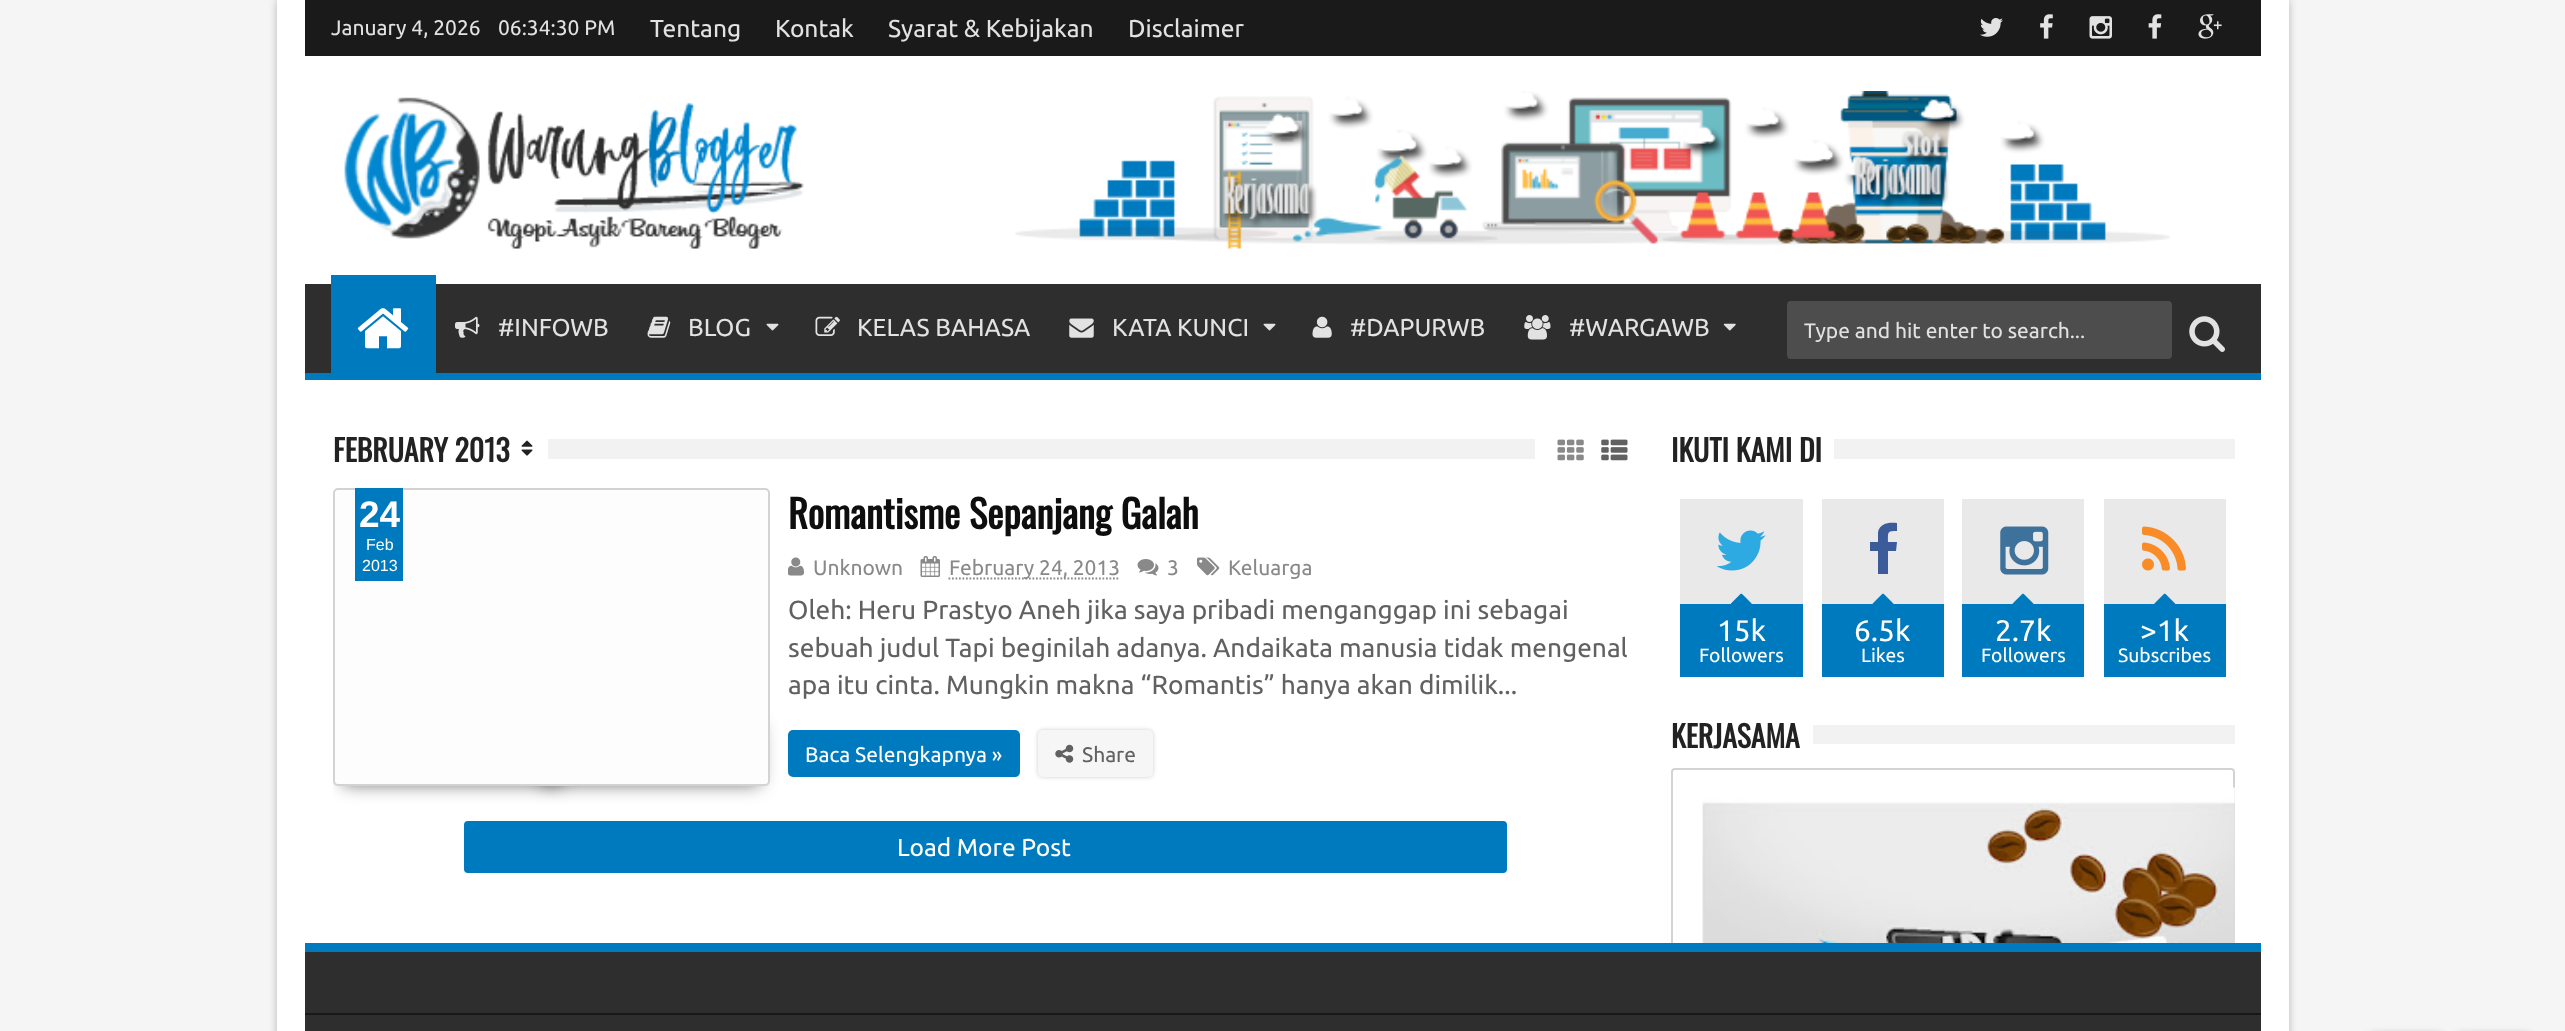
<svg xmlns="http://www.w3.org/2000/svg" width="2565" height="1031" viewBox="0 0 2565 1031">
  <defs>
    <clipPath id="clip1"><path d="M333 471h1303v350H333z"/></clipPath>
  </defs>
  <rect width="100%" height="100%" fill="#f5f5f5"/>
  <path d="M277 0h2012v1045H277z" fill="#00000040" filter="blur(4.5px)"/>
  <path d="M277 0h2012v1031H277z" fill="#fff"/>
  <path d="M305 0h1956v56H305z" fill="#1a1a1a"/>
  <image x="1980" y="18" width="23" height="19" href="img/1.png"/>
  <image x="2040" y="14" width="13" height="25" href="img/2.png"/>
  <image x="2089" y="16" width="23" height="23" href="img/3.png"/>
  <image x="2148" y="14" width="14" height="25" href="img/4.png"/>
  <image x="2198" y="14" width="24" height="25" href="img/5.png"/>
  <image x="344" y="97" width="460" height="152" href="img/6.png"/>
  <image x="1015" y="91" width="1155" height="158" href="img/7.png"/>
  <path d="M305 284h1956v89H305z" fill="#2e2e2e"/>
  <path d="M305 373h1956v7H305z" fill="#007abe"/>
  <path d="M331 275h105v98H331z" fill="#007abe"/>
  <image x="357" y="308" width="52" height="41" href="img/8.png"/>
  <image x="455" y="316" width="25" height="22" href="img/9.png"/>
  <image x="647" y="316" width="24" height="22" href="img/10.png"/>
  <image x="766" y="323" width="13" height="8" href="img/11.png"/>
  <image x="815" y="316" width="25" height="20" href="img/12.png"/>
  <image x="1069" y="318" width="25" height="20" href="img/13.png"/>
  <image x="1263" y="323" width="13" height="8" href="img/11.png"/>
  <image x="1312" y="316" width="20" height="22" href="img/14.png"/>
  <image x="1524" y="315" width="27" height="25" href="img/15.png"/>
  <image x="1723" y="323" width="13" height="8" href="img/16.png"/>
  <rect x="1787" y="301" width="385" height="58" rx="4" fill="#4d4d4d"/>
  <image x="2189" y="316" width="36" height="36" href="img/17.png"/>
  <image x="521" y="440" width="12" height="16" href="img/18.png"/>
  <path d="M548 439h987v20H548z" fill="#f2f2f2"/>
  <image x="1557" y="439" width="27" height="22" href="img/19.png"/>
  <image x="1601" y="439" width="27" height="22" href="img/20.png"/>
  <g clip-path="url(#clip1)">
    <path d="M343 726h217v58H343z" fill="#00000099" filter="blur(9px)"/>
  </g>
  <path d="M543 726h217v58H543z" fill="#00000099" filter="blur(9px)"/>
  <rect x="334" y="489" width="435" height="296" rx="4" fill="#fdfdfd" stroke="#d3d3d3" stroke-width="2"/>
  <path d="M355 488h48v93H355z" fill="#007abe"/>
  <image x="788" y="557" width="16" height="19" href="img/21.png"/>
  <image x="920" y="556" width="20" height="21" href="img/22.png"/>
  <path d="M948.5 578.5H1119.5" fill="none" stroke="#898989" stroke-width="1.8" stroke-dasharray="1.75 1.75"/>
  <image x="1137" y="559" width="22" height="17" href="img/23.png"/>
  <image x="1197" y="557" width="23" height="19" href="img/24.png"/>
  <rect x="788" y="730" width="232" height="47" rx="5" fill="#007abe"/>
  <rect x="1038" y="730" width="115" height="47" rx="5" fill="#00000033" filter="blur(2px)"/>
  <rect x="1038" y="730" width="115" height="47" rx="5" fill="#f6f6f6"/>
  <image x="1055" y="744" width="19" height="19" href="img/25.png"/>
  <rect x="464" y="821" width="1043" height="52" rx="4" fill="#007abe"/>
  <path d="M1834 439h401v20H1834z" fill="#f2f2f2"/>
  <path d="M1680 499h123v105H1680z" fill="#e9e9e9"/>
  <image x="1716" y="530" width="50" height="41" href="img/26.png"/>
  <path d="M1680 604h123v73H1680z" fill="#007abe"/>
  <image x="1730" y="593" width="22" height="11" href="img/27.png"/>
  <path d="M1822 499h122v105H1822z" fill="#e9e9e9"/>
  <path d="M1897 523V531C1887 531 1888 532 1888 542H1897L1896 551H1888V574H1878V551H1870V542H1878V532C1880 523 1889 522 1897 523Z" fill="#3c5b9b"/>
  <path d="M1822 604h122v73H1822z" fill="#007abe"/>
  <image x="1872" y="593" width="22" height="11" href="img/28.png"/>
  <path d="M1962 499h122v105H1962z" fill="#e9e9e9"/>
  <image x="2000" y="526" width="49" height="49" href="img/29.png"/>
  <path d="M1962 604h122v73H1962z" fill="#007abe"/>
  <image x="2012" y="593" width="22" height="11" href="img/28.png"/>
  <path d="M2104 499h122v105H2104z" fill="#e9e9e9"/>
  <image x="2142" y="526" width="44" height="45" href="img/30.png"/>
  <path d="M2104 604h122v73H2104z" fill="#007abe"/>
  <image x="2154" y="593" width="22" height="11" href="img/31.png"/>
  <path d="M1813 725h422v19H1813z" fill="#f2f2f2"/>
  <rect x="1672" y="769" width="562" height="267" rx="3" fill="none" stroke="#d3d3d3" stroke-width="2"/>
  <image x="1702" y="787" width="533" height="156" href="img/32.png"/>
  <path d="M305 952h1956v79H305z" fill="#2e2e2e"/>
  <path d="M305 943h1956v9H305z" fill="#007abe"/>
  <path d="M305 1013h1956v2H305z" fill="#181818"/>
  <rect x="2370" y="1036" width="73" height="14" rx="5" fill="#00000080" filter="blur(4.5px)"/>
  <rect x="2457" y="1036" width="74" height="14" rx="5" fill="#00000080" filter="blur(4.5px)"/>
  <g font-family="Ubuntu" font-size="21" fill="#e2e2e2">
    <text x="331" y="35">January 4, 2026</text>
    <text x="498" y="35">06:34:30 PM</text>
  </g>
  <g font-family="Ubuntu" font-size="24.5" fill="#e2e2e2">
    <text x="650" y="37">Tentang</text>
    <text x="775" y="37">Kontak</text>
    <text x="888" y="37">Syarat &amp; Kebijakan</text>
    <text x="1128" y="37">Disclaimer</text>
    <text x="498" y="336">#INFOWB</text>
    <text x="688" y="336">BLOG</text>
    <text x="857" y="336">KELAS BAHASA</text>
    <text x="1112" y="336">KATA KUNCI</text>
    <text x="1350" y="336">#DAPURWB</text>
    <text x="1569" y="336">#WARGAWB</text>
  </g>
  <text x="1804" y="338" font-family="Ubuntu" font-size="21" fill="#e2e2e2">Type and hit enter to search...</text>
  <text x="333" y="462" font-family="Oswald" font-size="29.75" font-weight="bold" fill="#222">FEBRUARY 2013</text>
  <text x="359" y="527" font-family="Liberation Sans" font-size="37" font-weight="bold" fill="#fff">24</text>
  <g font-family="Liberation Sans" font-size="16" fill="#fff">
    <text x="366" y="550">Feb</text>
    <text x="362" y="571">2013</text>
  </g>
  <text x="788" y="529" font-family="Oswald" font-size="38.5" font-weight="bold" fill="#0e0e0e">Romantisme Sepanjang Galah</text>
  <g font-family="Ubuntu" font-size="21" fill="#898989">
    <text x="813" y="575">Unknown</text>
    <text x="949" y="575">February 24, 2013</text>
    <text x="1167" y="575">3</text>
    <text x="1228" y="575">Keluarga</text>
  </g>
  <g font-family="Ubuntu" font-size="26.25" fill="#616161">
    <text x="788" y="619">Oleh: Heru Prastyo Aneh jika saya pribadi menganggap ini sebagai</text>
    <text x="788" y="657">sebuah judul Tapi beginilah adanya. Andaikata manusia tidak mengenal</text>
    <text x="788" y="694">apa itu cinta. Mungkin makna “Romantis” hanya akan dimilik...</text>
  </g>
  <text x="805" y="762" font-family="Ubuntu" font-size="21" fill="#fff">Baca Selengkapnya »</text>
  <text x="1082" y="762" font-family="Ubuntu" font-size="21" fill="#616161">Share</text>
  <text x="897" y="856" font-family="Ubuntu" font-size="24.5" fill="#fff">Load More Post</text>
  <text x="1671" y="462" font-family="Oswald" font-size="29.75" font-weight="bold" fill="#222">IKUTI KAMI DI</text>
  <text x="1717" y="641" font-family="Ubuntu" font-size="29.75" fill="#fff">15k</text>
  <text x="1699" y="662" font-family="Ubuntu" font-size="19.25" fill="#fff">Followers</text>
  <text x="1854" y="641" font-family="Ubuntu" font-size="29.75" fill="#fff">6.5k</text>
  <text x="1861" y="662" font-family="Ubuntu" font-size="19.25" fill="#fff">Likes</text>
  <text x="1995" y="641" font-family="Ubuntu" font-size="29.75" fill="#fff">2.7k</text>
  <text x="1981" y="662" font-family="Ubuntu" font-size="19.25" fill="#fff">Followers</text>
  <text x="2140" y="641" font-family="Ubuntu" font-size="29.75" fill="#fff">&gt;1k</text>
  <text x="2118" y="662" font-family="Ubuntu" font-size="19.25" fill="#fff">Subscribes</text>
  <text x="1671" y="748" font-family="Oswald" font-size="29.75" font-weight="bold" fill="#222">KERJASAMA</text>
</svg>
